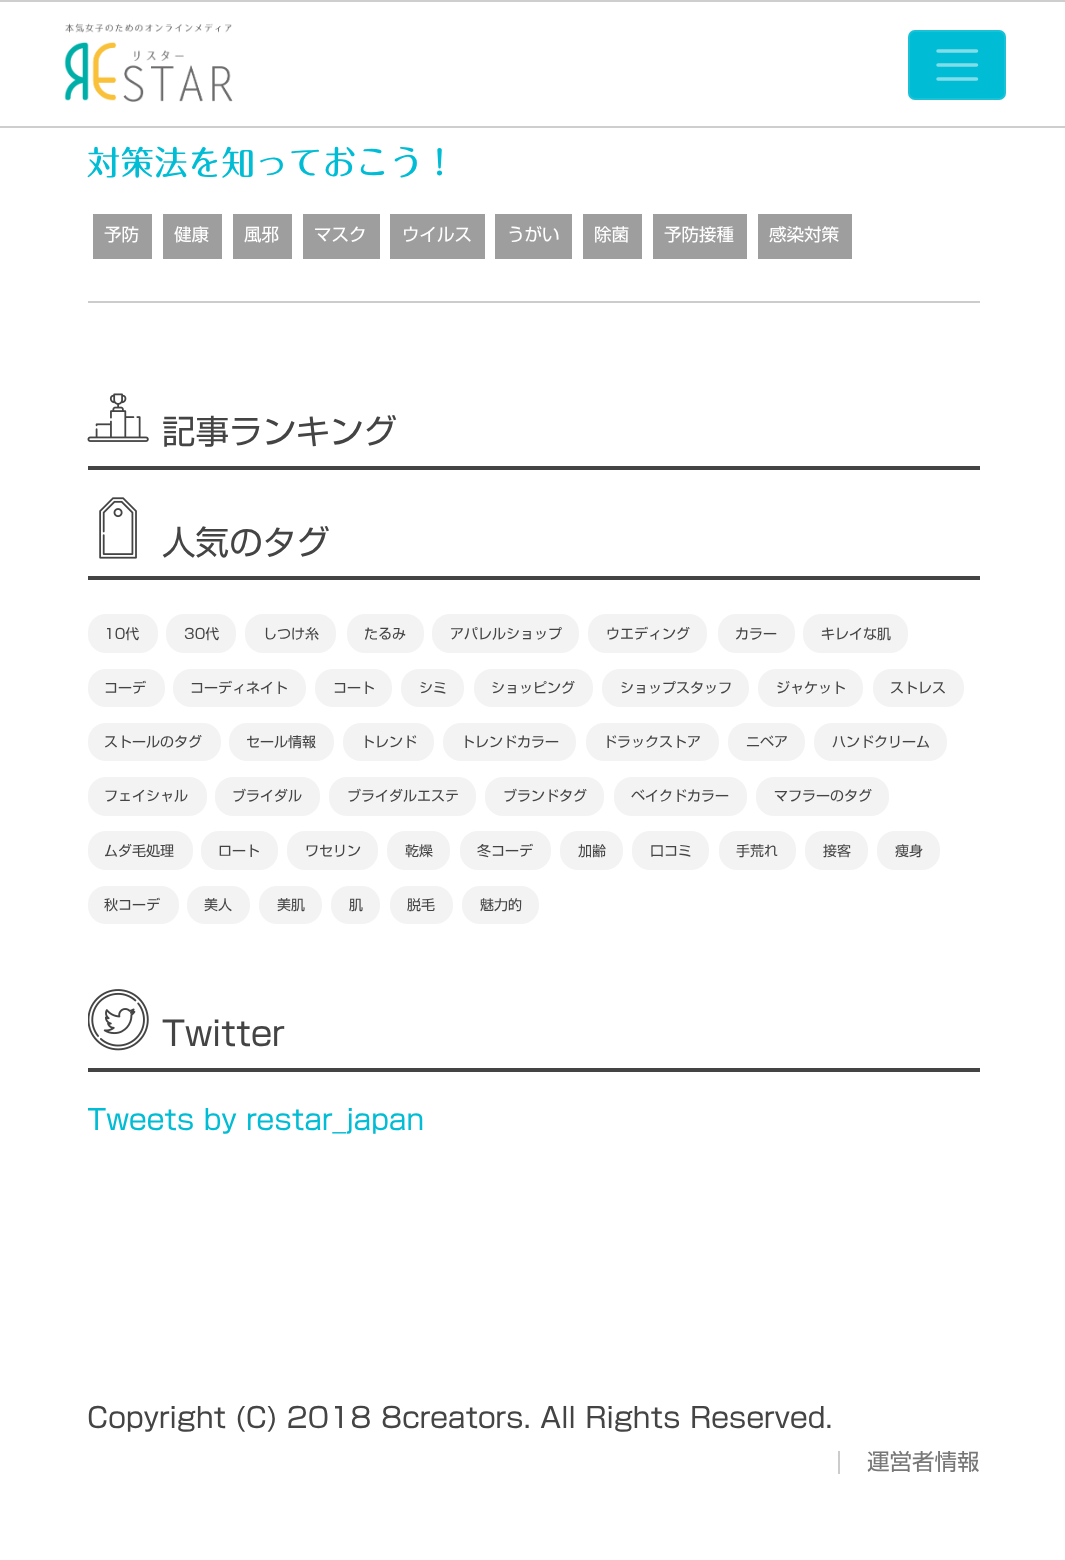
<svg xmlns="http://www.w3.org/2000/svg" width="1065" height="1560" viewBox="0 0 1065 1560">
  <defs>
    <clipPath id="clip1"><path d="M88 989h892v208H88z"/></clipPath>
  </defs>
  <rect width="100%" height="100%" fill="#fff"/>
  <path d="M0 0h1065v2H0z" fill="#cecece"/>
  <path d="M0 126h1065v2H0z" fill="#cecece"/>
  <image x="64" y="23" width="169" height="79" href="img/1.png"/>
  <rect x="908" y="30" width="98" height="70" rx="7" fill="#00bcd4"/>
  <rect x="909" y="31" width="96" height="68" rx="6" fill="none" stroke="#ffffff1a" stroke-width="2"/>
  <path d="M938 51H976.5M938 65H976.5M938 79H976.5" fill="none" stroke="#80deea" stroke-width="3.5" stroke-linecap="round"/>
  <path d="M88 301h892v2H88z" fill="#ccc"/>
  <path d="M93 214h59v45H93z" fill="#9e9e9e"/>
  <path d="M163 214h59v45H163z" fill="#9e9e9e"/>
  <path d="M233 214h59v45H233z" fill="#9e9e9e"/>
  <path d="M303 214h77v45H303z" fill="#9e9e9e"/>
  <path d="M390 214h95v45H390z" fill="#9e9e9e"/>
  <path d="M495 214h77v45H495z" fill="#9e9e9e"/>
  <path d="M583 214h59v45H583z" fill="#9e9e9e"/>
  <path d="M653 214h94v45H653z" fill="#9e9e9e"/>
  <path d="M758 214h94v45H758z" fill="#9e9e9e"/>
  <path d="M88 466h892v4H88z" fill="#444"/>
  <image x="87" y="393" width="62" height="49" href="img/2.png"/>
  <path d="M88 576h892v4H88z" fill="#444"/>
  <image x="99" y="497" width="38" height="62" href="img/3.png"/>
  <rect x="88" y="614" width="70" height="39" rx="18" fill="#f3f3f3"/>
  <rect x="166" y="614" width="70" height="39" rx="18" fill="#f3f3f3"/>
  <rect x="245" y="614" width="91" height="39" rx="18" fill="#f3f3f3"/>
  <rect x="347" y="614" width="77" height="39" rx="18" fill="#f3f3f3"/>
  <rect x="432" y="614" width="147" height="39" rx="18" fill="#f3f3f3"/>
  <rect x="588" y="614" width="119" height="39" rx="18" fill="#f3f3f3"/>
  <rect x="718" y="614" width="77" height="39" rx="18" fill="#f3f3f3"/>
  <rect x="803" y="614" width="105" height="39" rx="18" fill="#f3f3f3"/>
  <rect x="88" y="669" width="77" height="38" rx="18" fill="#f3f3f3"/>
  <rect x="173" y="669" width="133" height="38" rx="18" fill="#f3f3f3"/>
  <rect x="315" y="669" width="77" height="38" rx="18" fill="#f3f3f3"/>
  <rect x="401" y="669" width="63" height="38" rx="18" fill="#f3f3f3"/>
  <rect x="474" y="669" width="119" height="38" rx="18" fill="#f3f3f3"/>
  <rect x="602" y="669" width="147" height="38" rx="18" fill="#f3f3f3"/>
  <rect x="758" y="669" width="105" height="38" rx="18" fill="#f3f3f3"/>
  <rect x="873" y="669" width="91" height="38" rx="18" fill="#f3f3f3"/>
  <rect x="88" y="723" width="133" height="38" rx="18" fill="#f3f3f3"/>
  <rect x="229" y="723" width="105" height="38" rx="18" fill="#f3f3f3"/>
  <rect x="343" y="723" width="91" height="38" rx="18" fill="#f3f3f3"/>
  <rect x="443" y="723" width="133" height="38" rx="18" fill="#f3f3f3"/>
  <rect x="586" y="723" width="133" height="38" rx="18" fill="#f3f3f3"/>
  <rect x="728" y="723" width="77" height="38" rx="18" fill="#f3f3f3"/>
  <rect x="814" y="723" width="133" height="38" rx="18" fill="#f3f3f3"/>
  <rect x="88" y="777" width="119" height="39" rx="18" fill="#f3f3f3"/>
  <rect x="215" y="777" width="105" height="39" rx="18" fill="#f3f3f3"/>
  <rect x="329" y="777" width="147" height="39" rx="18" fill="#f3f3f3"/>
  <rect x="485" y="777" width="119" height="39" rx="18" fill="#f3f3f3"/>
  <rect x="614" y="777" width="133" height="39" rx="18" fill="#f3f3f3"/>
  <rect x="756" y="777" width="133" height="39" rx="18" fill="#f3f3f3"/>
  <rect x="88" y="831" width="105" height="39" rx="18" fill="#f3f3f3"/>
  <rect x="201" y="831" width="77" height="39" rx="18" fill="#f3f3f3"/>
  <rect x="287" y="831" width="91" height="39" rx="18" fill="#f3f3f3"/>
  <rect x="387" y="831" width="63" height="39" rx="18" fill="#f3f3f3"/>
  <rect x="460" y="831" width="91" height="39" rx="18" fill="#f3f3f3"/>
  <rect x="560" y="831" width="63" height="39" rx="18" fill="#f3f3f3"/>
  <rect x="632" y="831" width="77" height="39" rx="18" fill="#f3f3f3"/>
  <rect x="719" y="831" width="77" height="39" rx="18" fill="#f3f3f3"/>
  <rect x="805" y="831" width="63" height="39" rx="18" fill="#f3f3f3"/>
  <rect x="877" y="831" width="63" height="39" rx="18" fill="#f3f3f3"/>
  <rect x="88" y="886" width="91" height="38" rx="18" fill="#f3f3f3"/>
  <rect x="187" y="886" width="63" height="38" rx="18" fill="#f3f3f3"/>
  <rect x="259" y="886" width="63" height="38" rx="18" fill="#f3f3f3"/>
  <rect x="331" y="886" width="49" height="38" rx="18" fill="#f3f3f3"/>
  <rect x="390" y="886" width="63" height="38" rx="18" fill="#f3f3f3"/>
  <rect x="462" y="886" width="77" height="38" rx="18" fill="#f3f3f3"/>
  <path d="M88 1068h892v4H88z" fill="#444"/>
  <image x="88" y="989" width="61" height="62" href="img/4.png"/>
  <path d="M838 1451h2v23H838z" fill="#ccc"/>
  <text x="87" y="175" font-family="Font" font-size="33.6" font-weight="500" fill="#00bcd4">対策法を知っておこう！</text>
  <g font-family="Font" font-size="17.5" fill="#fff">
    <text x="104" y="241">予防</text>
    <text x="174" y="241">健康</text>
    <text x="244" y="241">風邪</text>
    <text x="314" y="241">マスク</text>
    <text x="402" y="241">ウイルス</text>
    <text x="507" y="241">うがい</text>
    <text x="594" y="241">除菌</text>
    <text x="664" y="241">予防接種</text>
    <text x="769" y="241">感染対策</text>
  </g>
  <g font-family="Font" font-size="33.6" fill="#444">
    <text x="162" y="444">記事ランキング</text>
    <text x="162" y="555">人気のタグ</text>
  </g>
  <g font-family="Font" font-size="14" fill="#444">
    <text x="104" y="639">10代</text>
    <text x="184" y="639">30代</text>
    <text x="263" y="639">しつけ糸</text>
    <text x="364" y="639">たるみ</text>
    <text x="450" y="639">アパレルショップ</text>
    <text x="606" y="639">ウエディング</text>
    <text x="735" y="639">カラー</text>
    <text x="821" y="639">キレイな肌</text>
    <text x="104" y="693">コーデ</text>
    <text x="190" y="693">コーディネイト</text>
    <text x="333" y="693">コート</text>
    <text x="419" y="693">シミ</text>
    <text x="491" y="693">ショッピング</text>
    <text x="620" y="693">ショップスタッフ</text>
    <text x="776" y="693">ジャケット</text>
    <text x="890" y="693">ストレス</text>
    <text x="104" y="747">ストールのタグ</text>
    <text x="246" y="747">セール情報</text>
    <text x="361" y="747">トレンド</text>
    <text x="461" y="747">トレンドカラー</text>
    <text x="603" y="747">ドラックストア</text>
    <text x="746" y="747">ニベア</text>
    <text x="832" y="747">ハンドクリーム</text>
    <text x="104" y="801">フェイシャル</text>
    <text x="232" y="801">ブライダル</text>
    <text x="347" y="801">ブライダルエステ</text>
    <text x="503" y="801">ブランドタグ</text>
    <text x="631" y="801">ベイクドカラー</text>
    <text x="774" y="801">マフラーのタグ</text>
    <text x="104" y="856">ムダ毛処理</text>
    <text x="218" y="856">ロート</text>
    <text x="305" y="856">ワセリン</text>
    <text x="405" y="856">乾燥</text>
    <text x="477" y="856">冬コーデ</text>
    <text x="578" y="856">加齢</text>
    <text x="650" y="856">口コミ</text>
    <text x="736" y="856">手荒れ</text>
    <text x="823" y="856">接客</text>
    <text x="895" y="856">痩身</text>
    <text x="104" y="910">秋コーデ</text>
    <text x="204" y="910">美人</text>
    <text x="277" y="910">美肌</text>
    <text x="349" y="910">肌</text>
    <text x="407" y="910">脱毛</text>
    <text x="480" y="910">魅力的</text>
  </g>
  <text x="162" y="1046" font-family="Font" font-size="33.6" fill="#444">Twitter</text>
  <g clip-path="url(#clip1)">
    <text x="87" y="1130" font-family="Font" font-size="28" fill="#00bcd4">Tweets by restar_japan</text>
  </g>
  <text x="87" y="1428" font-family="Font" font-size="28" fill="#444">Copyright (C) 2018 8creators. All Rights Reserved.</text>
  <text x="867" y="1470" font-family="Font" font-size="22.5" fill="#777">運営者情報</text>
</svg>
